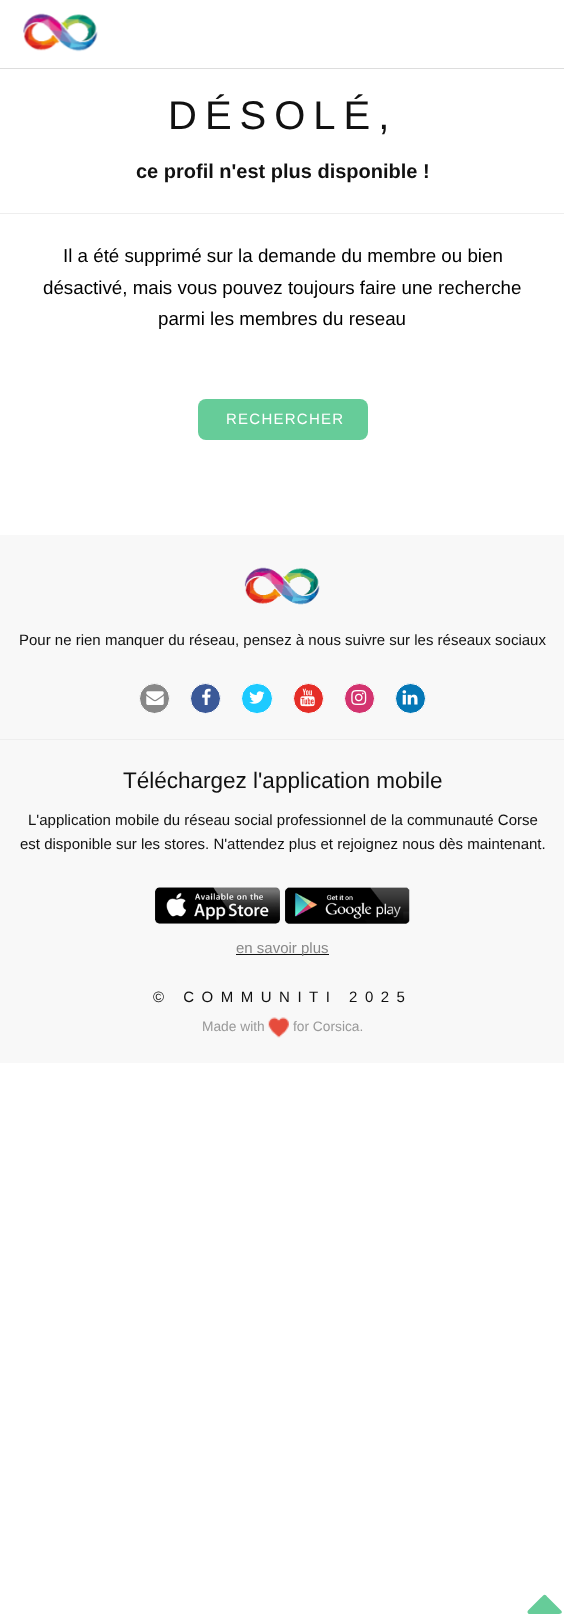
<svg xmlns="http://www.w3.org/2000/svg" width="564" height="1621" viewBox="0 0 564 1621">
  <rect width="100%" height="100%" fill="#fff"/>
  <image x="23" y="13" width="75" height="39" href="img/1.png"/>
  <path d="M0 68h564v1H0z" fill="#ddd"/>
  <path d="M0 213h564v1H0z" fill="#eee"/>
  <rect x="198" y="399" width="170" height="41" rx="8" fill="#6c9"/>
  <path d="M0 535h564v528H0z" fill="#f8f8f8"/>
  <image x="244" y="567" width="76" height="38" href="img/2.png"/>
  <circle cx="154.5" cy="698.5" r="15" fill="#888" stroke="#fff"/>
  <image x="146" y="691" width="18" height="14" href="img/3.png"/>
  <circle cx="205.5" cy="698.5" r="15" fill="#3b5998" stroke="#fff"/>
  <image x="202" y="688" width="9" height="17" href="img/4.png"/>
  <rect x="241.5" y="683.5" width="31" height="30" rx="15" fill="#1dcaff" stroke="#fff"/>
  <image x="249" y="691" width="16" height="13" href="img/5.png"/>
  <circle cx="308.5" cy="698.5" r="15" fill="#e52d27" stroke="#fff"/>
  <image x="300" y="688" width="15" height="19" href="img/6.png"/>
  <circle cx="359.5" cy="698.5" r="15" fill="#d3336f" stroke="#fff"/>
  <image x="351" y="690" width="16" height="15" href="img/7.png"/>
  <circle cx="410.5" cy="698.5" r="15" fill="#0477b6" stroke="#fff"/>
  <image x="402" y="690" width="16" height="15" href="img/8.png"/>
  <path d="M0 739h564v1H0z" fill="#eee"/>
  <image x="155" y="887" width="125" height="37" href="img/9.png"/>
  <image x="285" y="887" width="125" height="37" href="img/10.png"/>
  <path d="M236 954h93v1H236z" fill="#111"/>
  <image x="268" y="1017" width="21" height="21" href="img/11.png"/>
  <path d="M561 1610.5L561.5 1611C563.5 1615 555.5 1614 554.5 1614H529C527.5 1613.5 527 1611.5 528 1610.5L540.5 1598C545 1593.5 544.5 1593.5 548.5 1598Z" fill="#6c9"/>
  <text x="168" y="129" font-family="Liberation Sans" font-size="40" letter-spacing="8" fill="#111">DÉSOLÉ,</text>
  <text x="136" y="178" font-family="Liberation Sans" font-size="20" font-weight="bold" fill="#111">ce profil n'est plus disponible !</text>
  <g font-family="Liberation Sans" font-size="18.75" fill="#000">
    <text x="63" y="262">Il a été supprimé sur la demande du membre ou bien</text>
    <text x="43" y="294">désactivé, mais vous pouvez toujours faire une recherche</text>
    <text x="158" y="325">parmi les membres du reseau</text>
  </g>
  <text x="226" y="424" font-family="Liberation Sans" font-size="15" letter-spacing="1.25" fill="#fff">RECHERCHER</text>
  <text x="19" y="645" font-family="Liberation Sans" font-size="15" fill="#111">Pour ne rien manquer du réseau, pensez à nous suivre sur les réseaux sociaux</text>
  <text x="123" y="788" font-family="Liberation Sans" font-size="22.5" fill="#111">Téléchargez l'application mobile</text>
  <g font-family="Liberation Sans" font-size="15" fill="#111">
    <text x="28" y="825">L'application mobile du réseau social professionnel de la communauté Corse</text>
    <text x="20" y="849">est disponible sur les stores. N'attendez plus et rejoignez nous dès maintenant.</text>
  </g>
  <text x="236" y="953" font-family="Liberation Sans" font-size="15" fill="#888">en savoir plus</text>
  <text x="153" y="1002" font-family="Liberation Sans" font-size="15" letter-spacing="7.5" fill="#111">© COMMUNITI 2025</text>
  <g font-family="Liberation Sans" font-size="13.75" fill="#999">
    <text x="202" y="1031">Made with</text>
    <text x="293" y="1031">for Corsica.</text>
  </g>
</svg>
